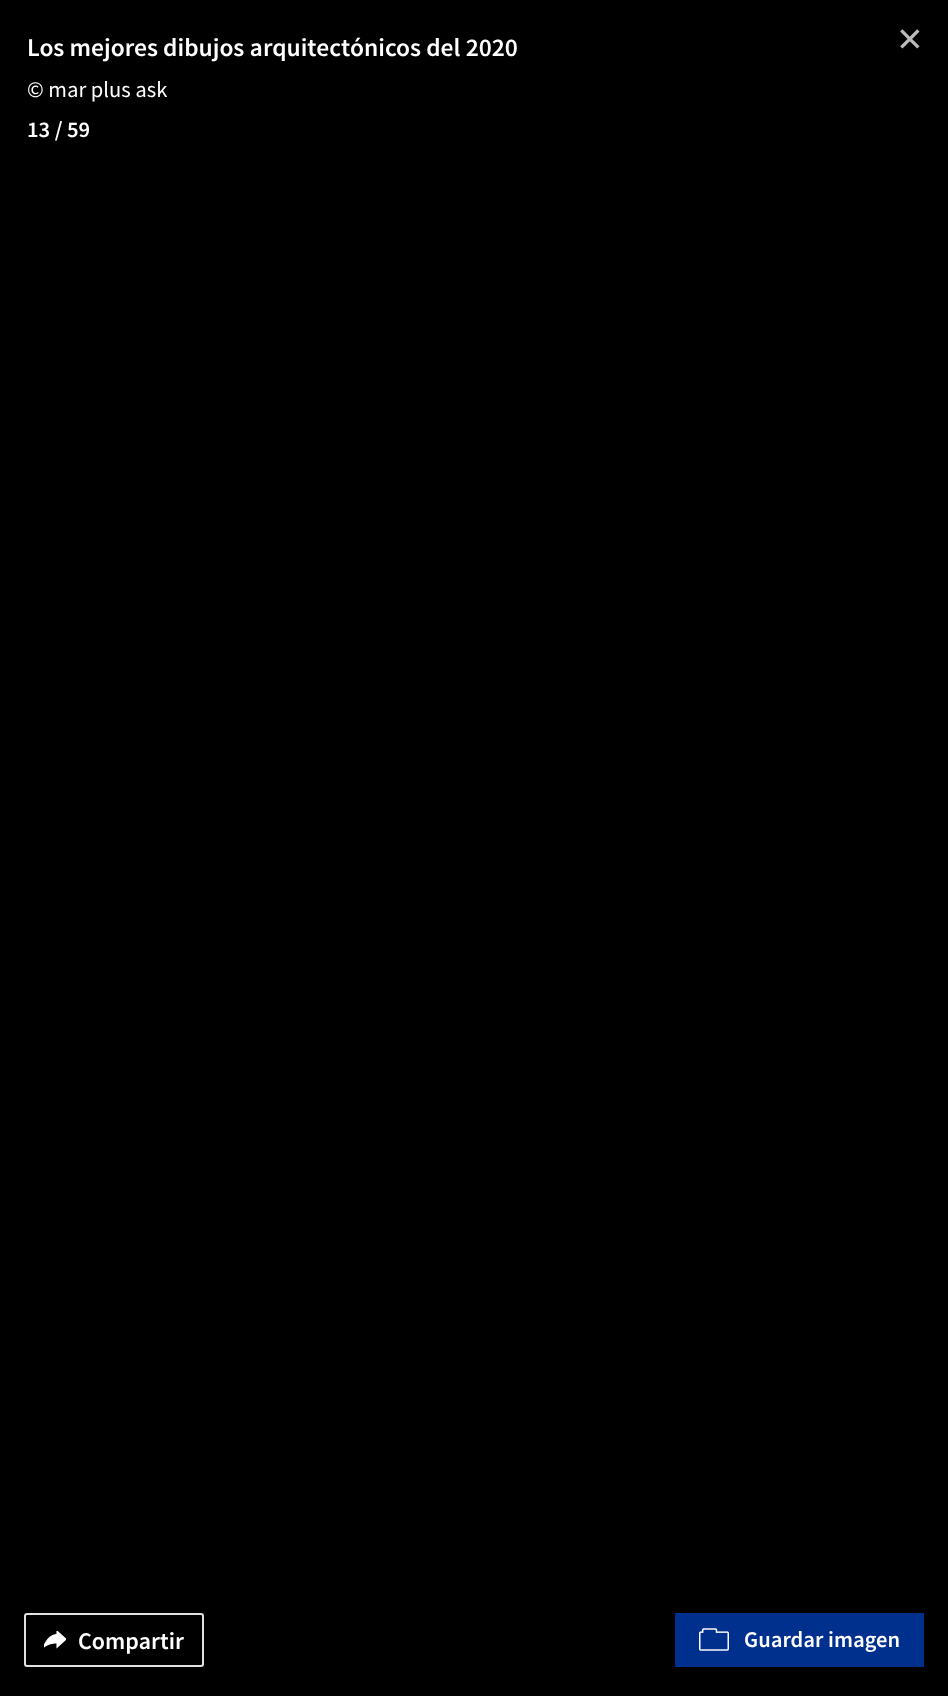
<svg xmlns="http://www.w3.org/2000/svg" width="948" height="1696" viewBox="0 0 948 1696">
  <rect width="100%" height="100%" fill="#000"/>
  <rect x="25" y="1614" width="178" height="52" rx="2" fill="none" stroke="#e1e1e1" stroke-width="2"/>
  <image x="44" y="1631" width="22" height="18" href="img/1.png"/>
  <path d="M675 1613h249v54H675z" fill="#00308e"/>
  <image x="699" y="1628" width="30" height="23" href="img/2.png"/>
  <text x="27" y="56" font-family="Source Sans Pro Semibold" font-size="25.5" font-weight="600" fill="#fff">Los mejores dibujos arquitectónicos del 2020</text>
  <text x="27" y="97" font-family="Source Sans Pro" font-size="22.5" fill="#fff">© mar plus ask</text>
  <text x="27" y="137" font-family="Source Sans Pro Semibold" font-size="22.5" font-weight="600" fill="#fff">13 / 59</text>
  <text x="896" y="51" font-family="DejaVu Sans" font-size="33" fill="#bbb">✕</text>
  <text x="78" y="1649" font-family="Source Sans Pro Semibold" font-size="24" font-weight="600" fill="#fff">Compartir</text>
  <text x="744" y="1647" font-family="Source Sans Pro Semibold" font-size="22.5" font-weight="600" fill="#fff">Guardar imagen</text>
</svg>
